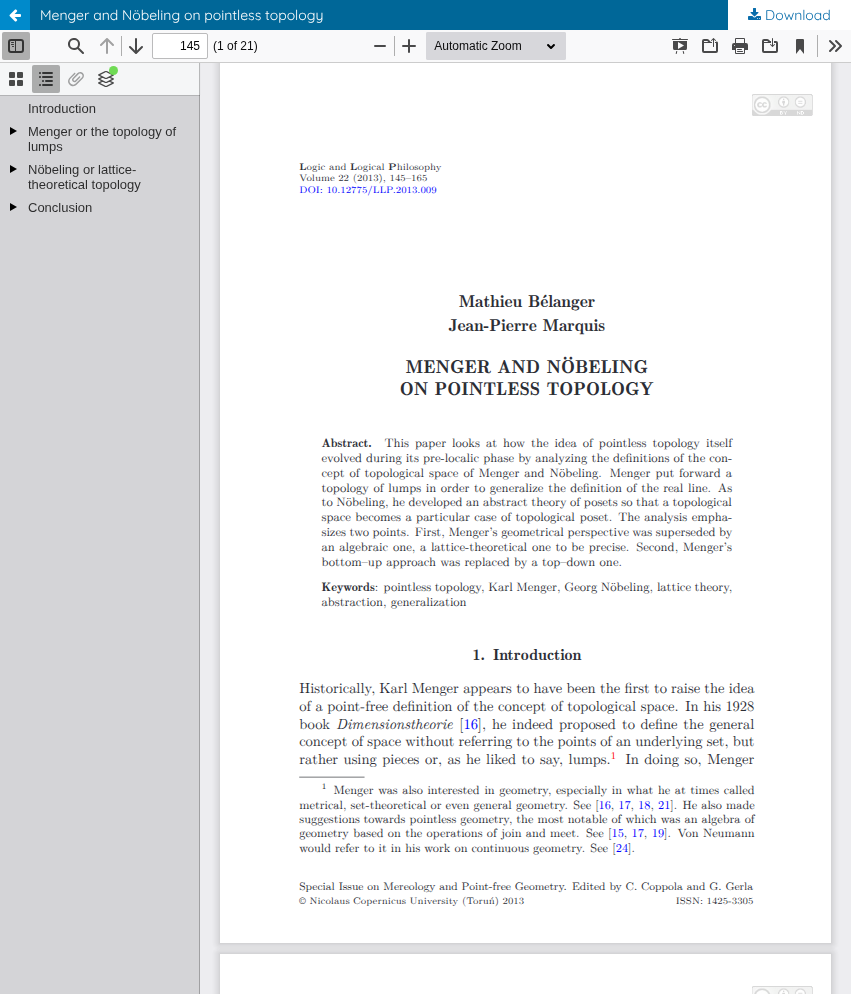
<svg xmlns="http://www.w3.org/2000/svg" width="851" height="994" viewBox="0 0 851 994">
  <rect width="100%" height="100%" fill="#fff"/>
  <path d="M30 0h698v30H30z" fill="#006798"/>
  <path d="M0 0h30v30H0z" fill="#008acb"/>
  <image x="9" y="9" width="12" height="13" href="img/1.png"/>
  <image x="748" y="8" width="13" height="12" href="img/2.png"/>
  <image x="0" y="30" width="851" height="964" href="img/3.png"/>
  <text x="40" y="20" font-family="Quicksand" font-size="14" fill="#fff">Menger and Nöbeling on pointless topology</text>
  <text x="765" y="20" font-family="Quicksand" font-size="14" fill="#096dab">Download</text>
</svg>
